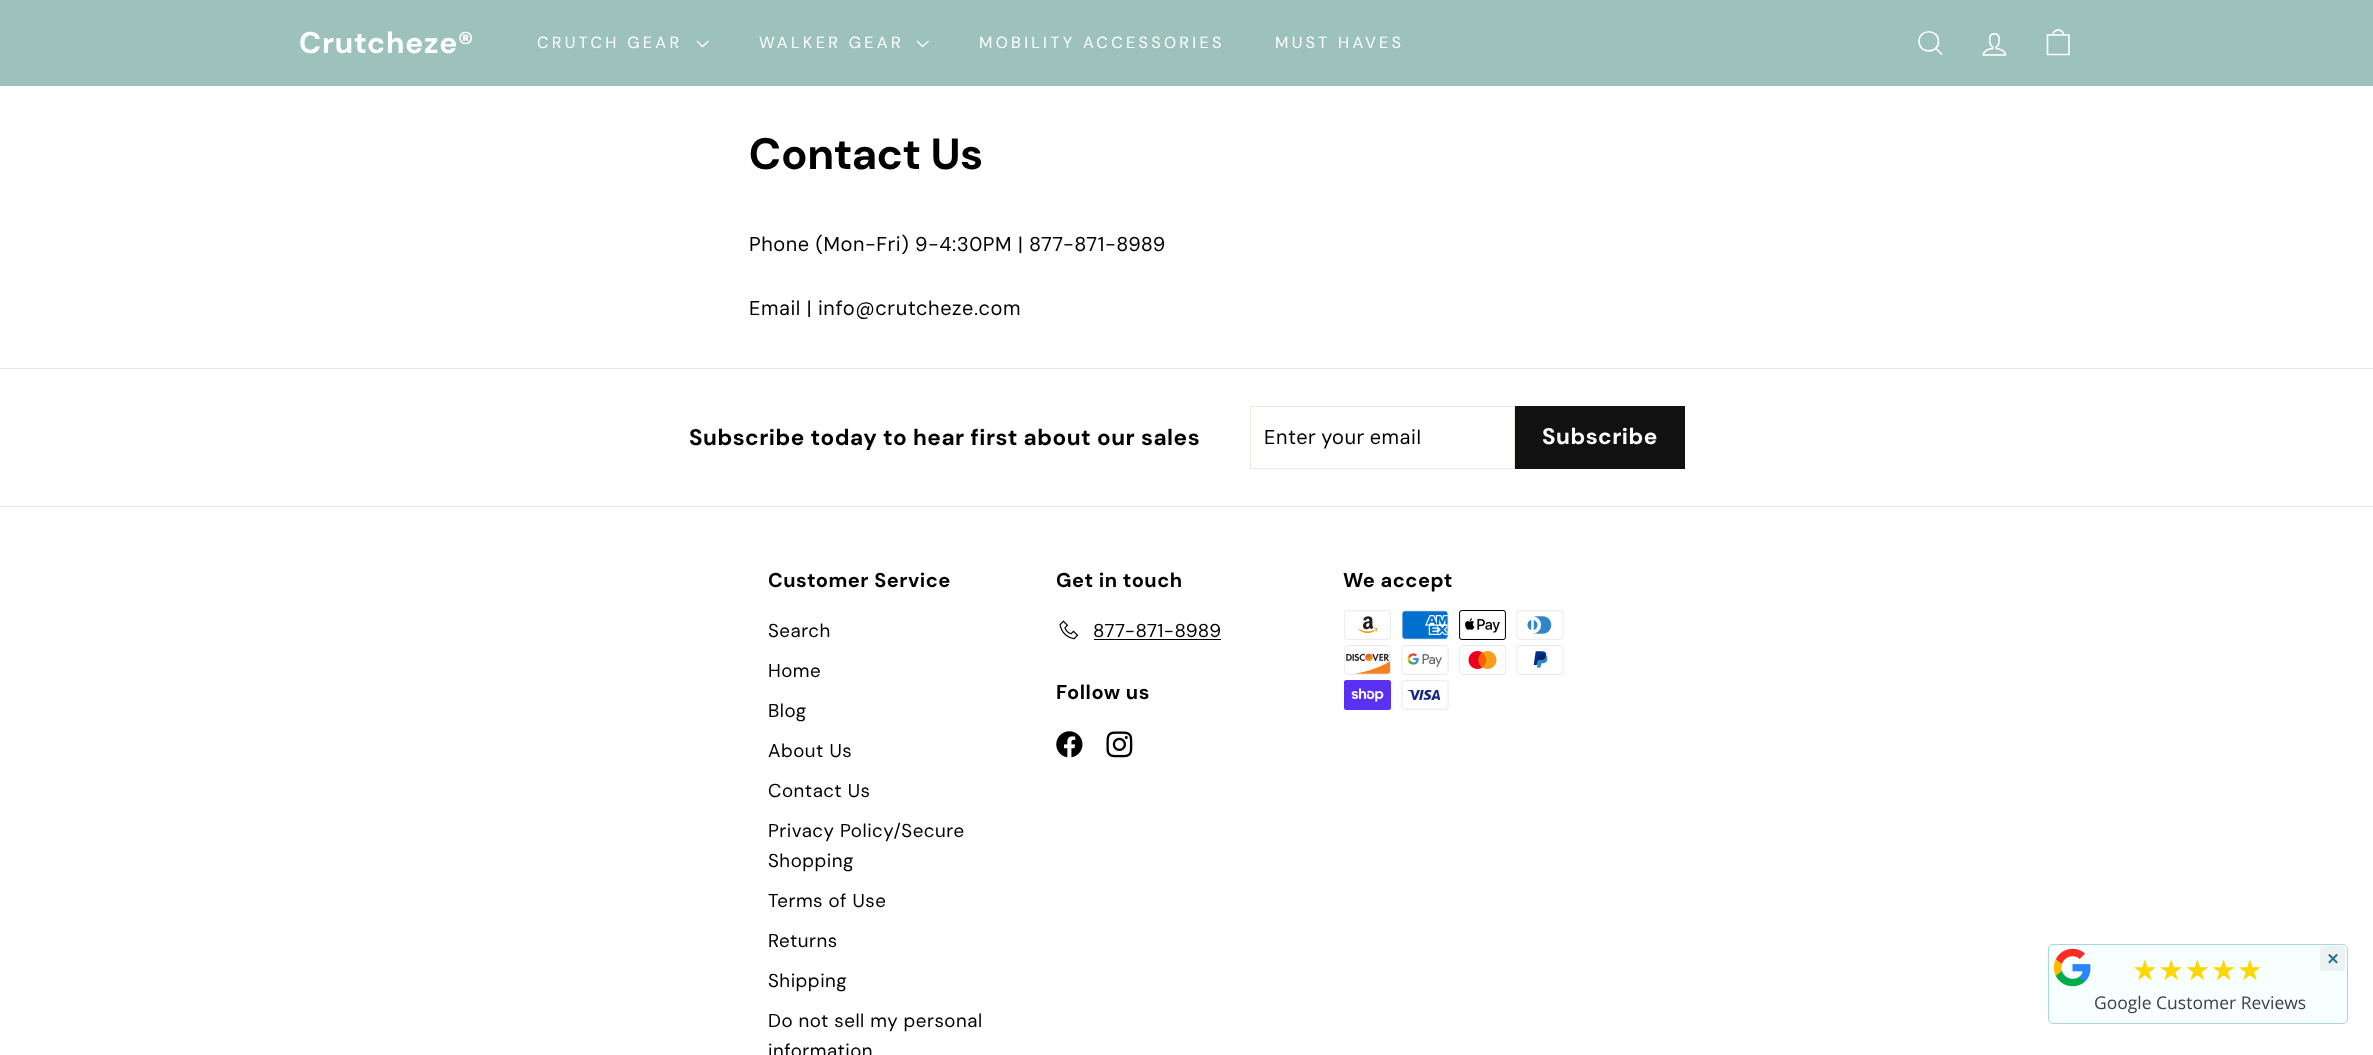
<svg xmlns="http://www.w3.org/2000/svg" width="2373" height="1055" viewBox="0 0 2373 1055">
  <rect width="100%" height="100%" fill="#fff"/>
  <path d="M0 0h2373v86H0z" fill="#9cc2bb"/>
  <path d="M697 41L702.5 46.5L708.5 41" fill="none" stroke="#fff" stroke-width="1.3"/>
  <path d="M917 41L922.5 46.5L928.5 41" fill="none" stroke="#fff" stroke-width="1.3"/>
  <path d="M1938.5 41.5C1938.5 54 1919 54 1919 41.5C1919 28.5 1938.5 28.5 1938.5 41.5M1942 54.5L1936 48.5" fill="none" stroke="#fff" stroke-width="1.6"/>
  <image x="1982" y="33" width="25" height="23" href="img/1.png"/>
  <path d="M2053 35C2053 28.5 2063.5 28.5 2063.5 35M2047.5 35H2069V54.5H2047.5Z" fill="none" stroke="#fff" stroke-width="1.6"/>
  <path d="M0 368h2373v1H0z" fill="#e8e8e1"/>
  <path d="M1250.5 406.5h264v62H1250.5z" fill="none" stroke="#e8e8e1"/>
  <path d="M1515 406h170v63H1515z" fill="#111"/>
  <path d="M0 506h2373v1H0z" fill="#e8e8e1"/>
  <image x="1059" y="620" width="20" height="20" href="img/2.png"/>
  <path d="M1094 639h127v1H1094z" fill="#000"/>
  <image x="1056" y="731" width="27" height="27" href="img/3.png"/>
  <image x="1106" y="731" width="27" height="27" href="img/4.png"/>
  <image x="1344" y="610" width="47" height="30" href="img/5.png"/>
  <image x="1401" y="610" width="48" height="30" href="img/6.png"/>
  <image x="1459" y="610" width="47" height="30" href="img/7.png"/>
  <image x="1516" y="610" width="48" height="30" href="img/8.png"/>
  <image x="1344" y="645" width="47" height="30" href="img/9.png"/>
  <image x="1401" y="645" width="48" height="30" href="img/10.png"/>
  <image x="1459" y="645" width="47" height="30" href="img/11.png"/>
  <image x="1516" y="645" width="48" height="30" href="img/12.png"/>
  <image x="1344" y="680" width="47" height="30" href="img/13.png"/>
  <image x="1401" y="680" width="48" height="30" href="img/14.png"/>
  <rect x="2046" y="943" width="303" height="82" rx="6" fill="#f8ffff"/>
  <rect x="2048.5" y="944.5" width="299" height="79" rx="4.5" fill="none" stroke="#a9d5de"/>
  <image x="2053" y="948" width="38" height="39" href="img/15.png"/>
  <rect x="2320" y="946" width="25" height="25" rx="2.5" fill="#ecf2f2"/>
  <text x="299" y="53" font-family="'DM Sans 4'" font-size="30" font-weight="bold" letter-spacing="0.75" fill="#fff">Crutcheze®</text>
  <g font-family="DM Sans" font-size="16.25" letter-spacing="3.25" fill="#fff">
    <text x="537" y="48">CRUTCH GEAR</text>
    <text x="759" y="48">WALKER GEAR</text>
    <text x="979" y="48">MOBILITY ACCESSORIES</text>
    <text x="1275" y="48">MUST HAVES</text>
  </g>
  <text x="749" y="169" font-family="DM Sans" font-size="43.75" font-weight="bold" letter-spacing="1" fill="#000">Contact Us</text>
  <g font-family="DM Sans" font-size="20" letter-spacing="0.5" fill="#000">
    <text x="749" y="251">Phone (Mon-Fri) 9-4:30PM |</text>
    <text x="1029" y="251">877-871-8989</text>
    <text x="749" y="315">Email |</text>
    <text x="818" y="315">info@crutcheze.com</text>
  </g>
  <text x="689" y="445" font-family="'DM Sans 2'" font-size="22.5" font-weight="bold" letter-spacing="0.5" fill="#000">Subscribe today to hear first about our sales</text>
  <text x="1264" y="444" word-spacing="-1" font-family="DM Sans" font-size="20" letter-spacing="0.5" fill="#000">Enter your email</text>
  <text x="1542" y="444" font-family="'DM Sans 2'" font-size="22.5" font-weight="bold" letter-spacing="0.5" fill="#fff">Subscribe</text>
  <text x="768" y="587" font-family="'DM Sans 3'" font-size="20" font-weight="bold" letter-spacing="0.5" fill="#000">Customer Service</text>
  <g font-family="'DM Sans 2'" font-size="18.75" letter-spacing="0.5" fill="#000">
    <text x="768" y="637">Search</text>
    <text x="768" y="677">Home</text>
    <text x="768" y="717">Blog</text>
    <text x="768" y="757">About Us</text>
    <text x="768" y="797">Contact Us</text>
    <text x="768" y="837">Privacy Policy/Secure</text>
    <text x="768" y="867">Shopping</text>
    <text x="768" y="907">Terms of Use</text>
    <text x="768" y="947">Returns</text>
    <text x="768" y="987">Shipping</text>
    <text x="768" y="1027">Do not sell my personal</text>
    <text x="768" y="1057">information</text>
  </g>
  <text x="1056" y="587" font-family="'DM Sans 3'" font-size="20" font-weight="bold" letter-spacing="0.5" fill="#000">Get in touch</text>
  <text x="1093" y="637" font-family="'DM Sans 2'" font-size="18.75" letter-spacing="0.5" fill="#000">877-871-8989</text>
  <g font-family="'DM Sans 3'" font-size="20" font-weight="bold" letter-spacing="0.5" fill="#000">
    <text x="1056" y="699">Follow us</text>
    <text x="1343" y="587">We accept</text>
  </g>
  <text x="2132" y="980" font-family="DejaVu Sans" font-size="28.75" letter-spacing="0.5" fill="#ffd700">★★★★★</text>
  <text x="2094" y="1009" font-family="Open Sans" font-size="17.5" fill="#404040">Google Customer Reviews</text>
  <text x="2327" y="966" font-family="Open Sans" font-size="20" font-weight="bold" letter-spacing="0.5" fill="#276f86">×</text>
</svg>
